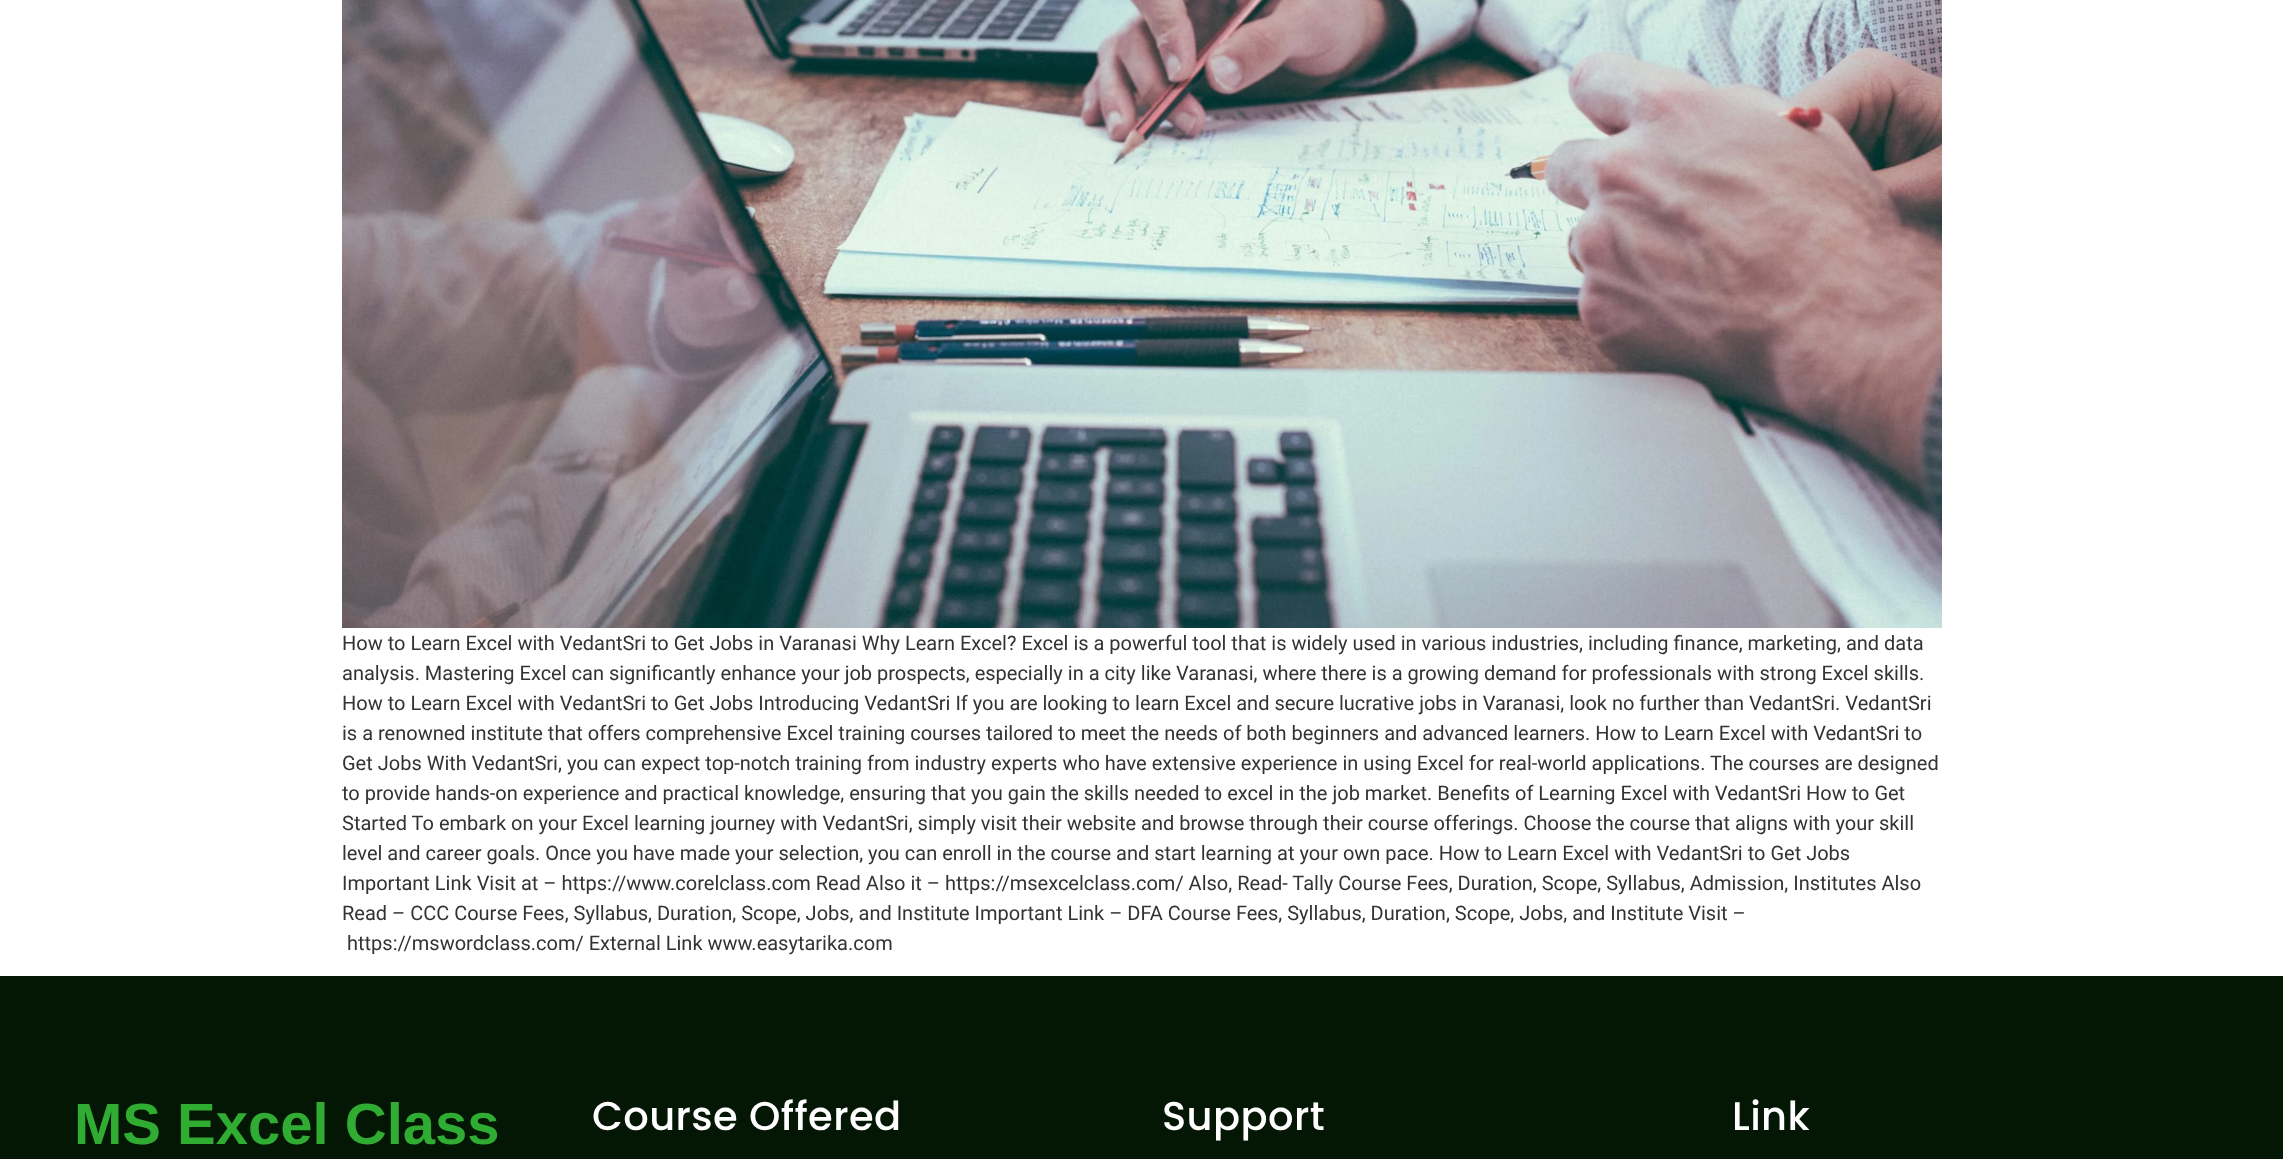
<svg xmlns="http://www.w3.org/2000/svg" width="2283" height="1159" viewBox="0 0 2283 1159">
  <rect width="100%" height="100%" fill="#fff"/>
  <image x="342" y="0" width="1600" height="628" href="img/1.png"/>
  <path d="M0 976h2283v183H0z" fill="#041704"/>
  <g font-family="Roboto" font-size="20" fill="#333">
    <text x="342" y="650">How to Learn Excel with VedantSri to Get Jobs in Varanasi Why Learn Excel? Excel is a powerful tool that is widely used in various industries, including finance, marketing, and data</text>
    <text x="342" y="680">analysis. Mastering Excel can significantly enhance your job prospects, especially in a city like Varanasi, where there is a growing demand for professionals with strong Excel skills.</text>
    <text x="342" y="710">How to Learn Excel with VedantSri to Get Jobs Introducing VedantSri If you are looking to learn Excel and secure lucrative jobs in Varanasi, look no further than VedantSri. VedantSri</text>
    <text x="342" y="740">is a renowned institute that offers comprehensive Excel training courses tailored to meet the needs of both beginners and advanced learners. How to Learn Excel with VedantSri to</text>
    <text x="342" y="770">Get Jobs With VedantSri, you can expect top-notch training from industry experts who have extensive experience in using Excel for real-world applications. The courses are designed</text>
    <text x="342" y="800">to provide hands-on experience and practical knowledge, ensuring that you gain the skills needed to excel in the job market. Benefits of Learning Excel with VedantSri How to Get</text>
    <text x="342" y="830">Started To embark on your Excel learning journey with VedantSri, simply visit their website and browse through their course offerings. Choose the course that aligns with your skill</text>
    <text x="342" y="860">level and career goals. Once you have made your selection, you can enroll in the course and start learning at your own pace. How to Learn Excel with VedantSri to Get Jobs</text>
    <text x="342" y="890">Important Link Visit at – https://www.corelclass.com Read Also it – https://msexcelclass.com/ Also, Read- Tally Course Fees, Duration, Scope, Syllabus, Admission, Institutes Also</text>
    <text x="342" y="920">Read – CCC Course Fees, Syllabus, Duration, Scope, Jobs, and Institute Important Link – DFA Course Fees, Syllabus, Duration, Scope, Jobs, and Institute Visit –</text>
    <text x="347" y="950">https://mswordclass.com/ External Link www.easytarika.com</text>
  </g>
  <text x="74" y="1144" font-family="Liberation Sans" font-size="58" font-weight="bold" fill="#30ac33">MS Excel Class</text>
  <g font-family="Poppins" font-size="40" font-weight="500" letter-spacing="0.4" fill="#fff">
    <text x="592" y="1130">Course Offered</text>
    <text x="1162" y="1130">Support</text>
    <text x="1732" y="1130">Link</text>
  </g>
</svg>
